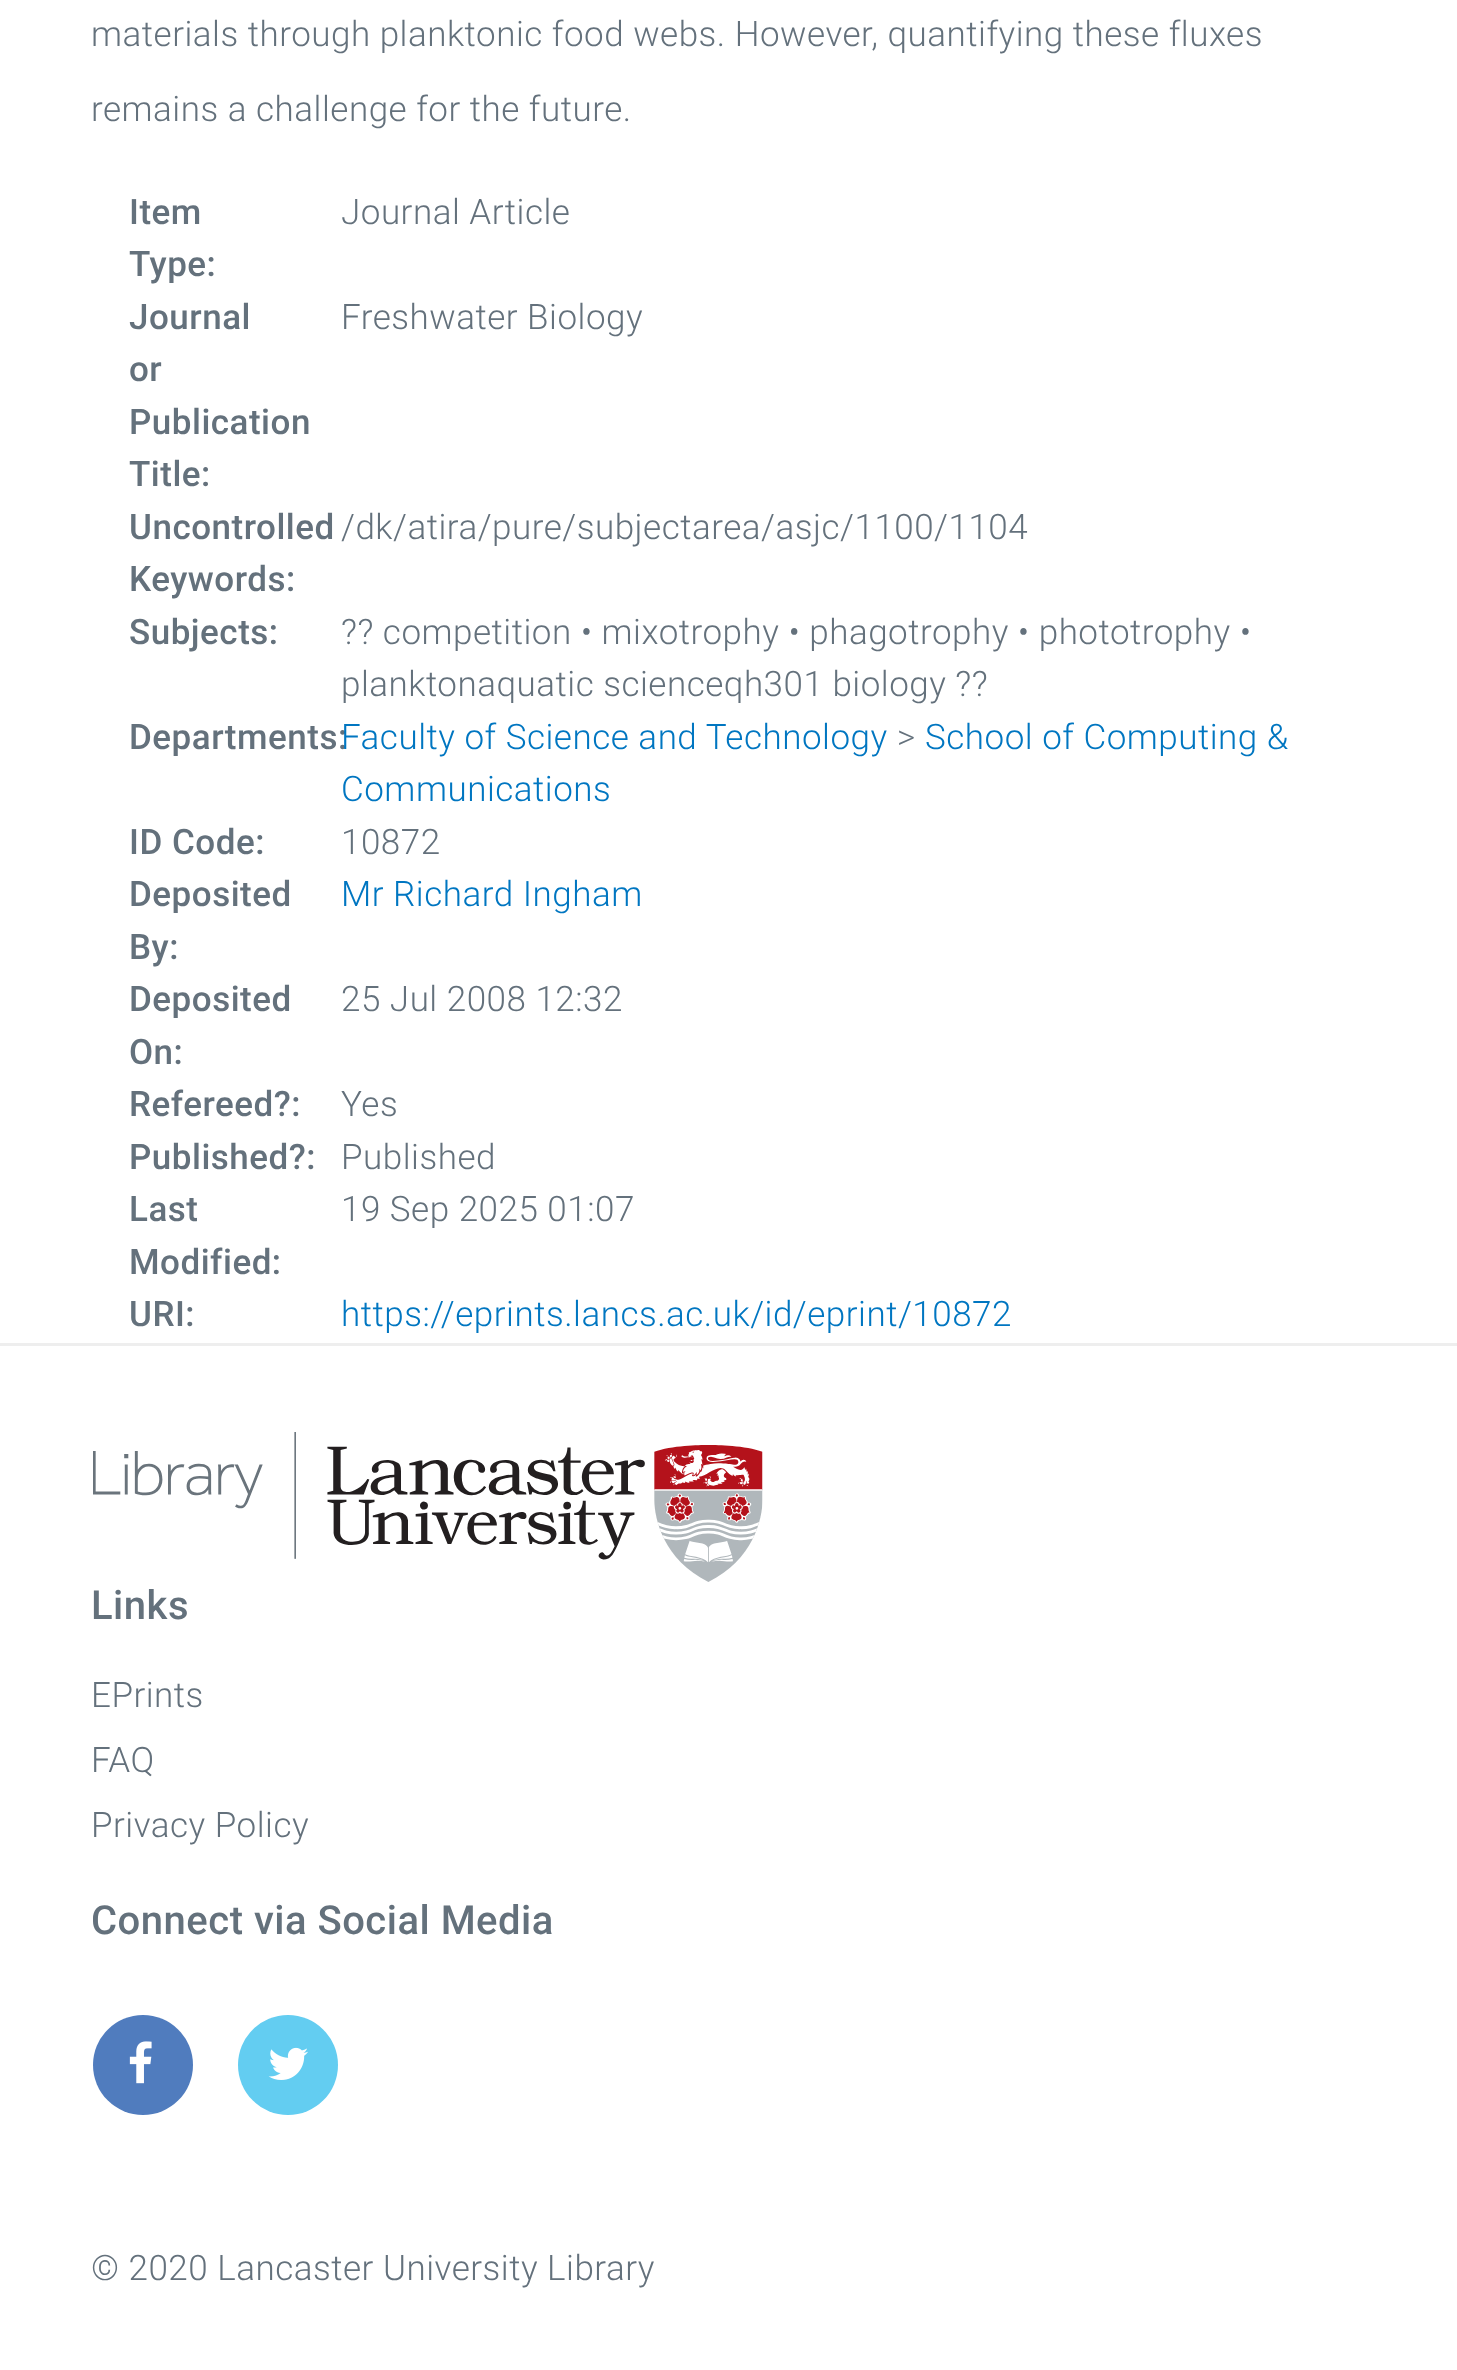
<svg xmlns="http://www.w3.org/2000/svg" width="1457" height="2370" viewBox="0 0 1457 2370">
  <rect width="100%" height="100%" fill="#fff"/>
  <path d="M0 1343h1457v3H0z" fill="#eee"/>
  <image x="93" y="1432" width="670" height="150" href="img/1.png"/>
  <circle cx="143" cy="2065" r="50" fill="#507cbe"/>
  <image x="129" y="2041" width="23" height="43" href="img/2.png"/>
  <circle cx="288" cy="2065" r="50" fill="#63cdf1"/>
  <image x="268" y="2047" width="40" height="33" href="img/3.png"/>
  <g font-family="Roboto" font-size="35" font-weight="300" letter-spacing="0.5" fill="#64717c">
    <text x="91" y="46">materials through planktonic food webs. However, quantifying these fluxes</text>
    <text x="91" y="121">remains a challenge for the future.</text>
  </g>
  <g font-family="Roboto" font-size="35" font-weight="500" letter-spacing="0.5" fill="#64717c">
    <text x="129" y="224">Item</text>
    <text x="129" y="276">Type:</text>
  </g>
  <text x="341" y="224" font-family="Roboto" font-size="35" font-weight="300" letter-spacing="0.5" fill="#64717c">Journal Article</text>
  <g font-family="Roboto" font-size="35" font-weight="500" letter-spacing="0.5" fill="#64717c">
    <text x="129" y="329">Journal</text>
    <text x="129" y="381">or</text>
    <text x="129" y="434">Publication</text>
    <text x="129" y="486">Title:</text>
  </g>
  <text x="341" y="329" font-family="Roboto" font-size="35" font-weight="300" letter-spacing="0.5" fill="#64717c">Freshwater Biology</text>
  <g font-family="Roboto" font-size="35" font-weight="500" letter-spacing="0.5" fill="#64717c">
    <text x="129" y="539">Uncontrolled</text>
    <text x="129" y="591">Keywords:</text>
  </g>
  <text x="341" y="539" font-family="Roboto" font-size="35" font-weight="300" letter-spacing="0.5" fill="#64717c">/dk/atira/pure/subjectarea/asjc/1100/1104</text>
  <text x="129" y="644" font-family="Roboto" font-size="35" font-weight="500" letter-spacing="0.5" fill="#64717c">Subjects:</text>
  <g font-family="Roboto" font-size="35" font-weight="300" letter-spacing="0.5" fill="#64717c">
    <text x="341" y="644">?? competition • mixotrophy • phagotrophy • phototrophy •</text>
    <text x="341" y="696">planktonaquatic scienceqh301 biology ??</text>
  </g>
  <text x="129" y="749" font-family="Roboto" font-size="35" font-weight="500" letter-spacing="0.5" fill="#64717c">Departments:</text>
  <text x="341" y="749" font-family="Roboto" font-size="35" font-weight="300" letter-spacing="0.5" fill="#0076c1">Faculty of Science and Technology</text>
  <text x="897" y="749" font-family="Roboto" font-size="35" font-weight="300" letter-spacing="0.5" fill="#64717c">&gt;</text>
  <g font-family="Roboto" font-size="35" font-weight="300" letter-spacing="0.5" fill="#0076c1">
    <text x="925" y="749">School of Computing &amp;</text>
    <text x="341" y="801">Communications</text>
  </g>
  <text x="129" y="854" font-family="Roboto" font-size="35" font-weight="500" letter-spacing="0.5" fill="#64717c">ID Code:</text>
  <text x="341" y="854" font-family="Roboto" font-size="35" font-weight="300" letter-spacing="0.5" fill="#64717c">10872</text>
  <g font-family="Roboto" font-size="35" font-weight="500" letter-spacing="0.5" fill="#64717c">
    <text x="129" y="906">Deposited</text>
    <text x="129" y="959">By:</text>
  </g>
  <text x="341" y="906" font-family="Roboto" font-size="35" font-weight="300" letter-spacing="0.5" fill="#0076c1">Mr Richard Ingham</text>
  <g font-family="Roboto" font-size="35" font-weight="500" letter-spacing="0.5" fill="#64717c">
    <text x="129" y="1011">Deposited</text>
    <text x="129" y="1064">On:</text>
  </g>
  <text x="341" y="1011" font-family="Roboto" font-size="35" font-weight="300" letter-spacing="0.5" fill="#64717c">25 Jul 2008 12:32</text>
  <text x="129" y="1116" font-family="Roboto" font-size="35" font-weight="500" letter-spacing="0.5" fill="#64717c">Refereed?:</text>
  <text x="341" y="1116" font-family="Roboto" font-size="35" font-weight="300" letter-spacing="0.5" fill="#64717c">Yes</text>
  <text x="129" y="1169" font-family="Roboto" font-size="35" font-weight="500" letter-spacing="0.5" fill="#64717c">Published?:</text>
  <text x="341" y="1169" font-family="Roboto" font-size="35" font-weight="300" letter-spacing="0.5" fill="#64717c">Published</text>
  <g font-family="Roboto" font-size="35" font-weight="500" letter-spacing="0.5" fill="#64717c">
    <text x="129" y="1221">Last</text>
    <text x="129" y="1274">Modified:</text>
  </g>
  <text x="341" y="1221" font-family="Roboto" font-size="35" font-weight="300" letter-spacing="0.5" fill="#64717c">19 Sep 2025 01:07</text>
  <text x="129" y="1326" font-family="Roboto" font-size="35" font-weight="500" letter-spacing="0.5" fill="#64717c">URI:</text>
  <text x="341" y="1326" font-family="Roboto" font-size="35" font-weight="300" letter-spacing="0.5" fill="#0076c1">https://eprints.lancs.ac.uk/id/eprint/10872</text>
  <text x="91" y="1619" font-family="Roboto" font-size="40" font-weight="500" letter-spacing="0.5" fill="#64717c">Links</text>
  <g font-family="Roboto" font-size="35" font-weight="300" letter-spacing="0.5" fill="#64717c">
    <text x="91" y="1707">EPrints</text>
    <text x="91" y="1772">FAQ</text>
    <text x="91" y="1837">Privacy Policy</text>
  </g>
  <text x="91" y="1934" font-family="Roboto" font-size="40" font-weight="500" letter-spacing="0.5" fill="#64717c">Connect via Social Media</text>
  <text x="91" y="2280" font-family="Roboto" font-size="35" font-weight="300" letter-spacing="0.5" fill="#64717c">© 2020 Lancaster University Library</text>
</svg>
